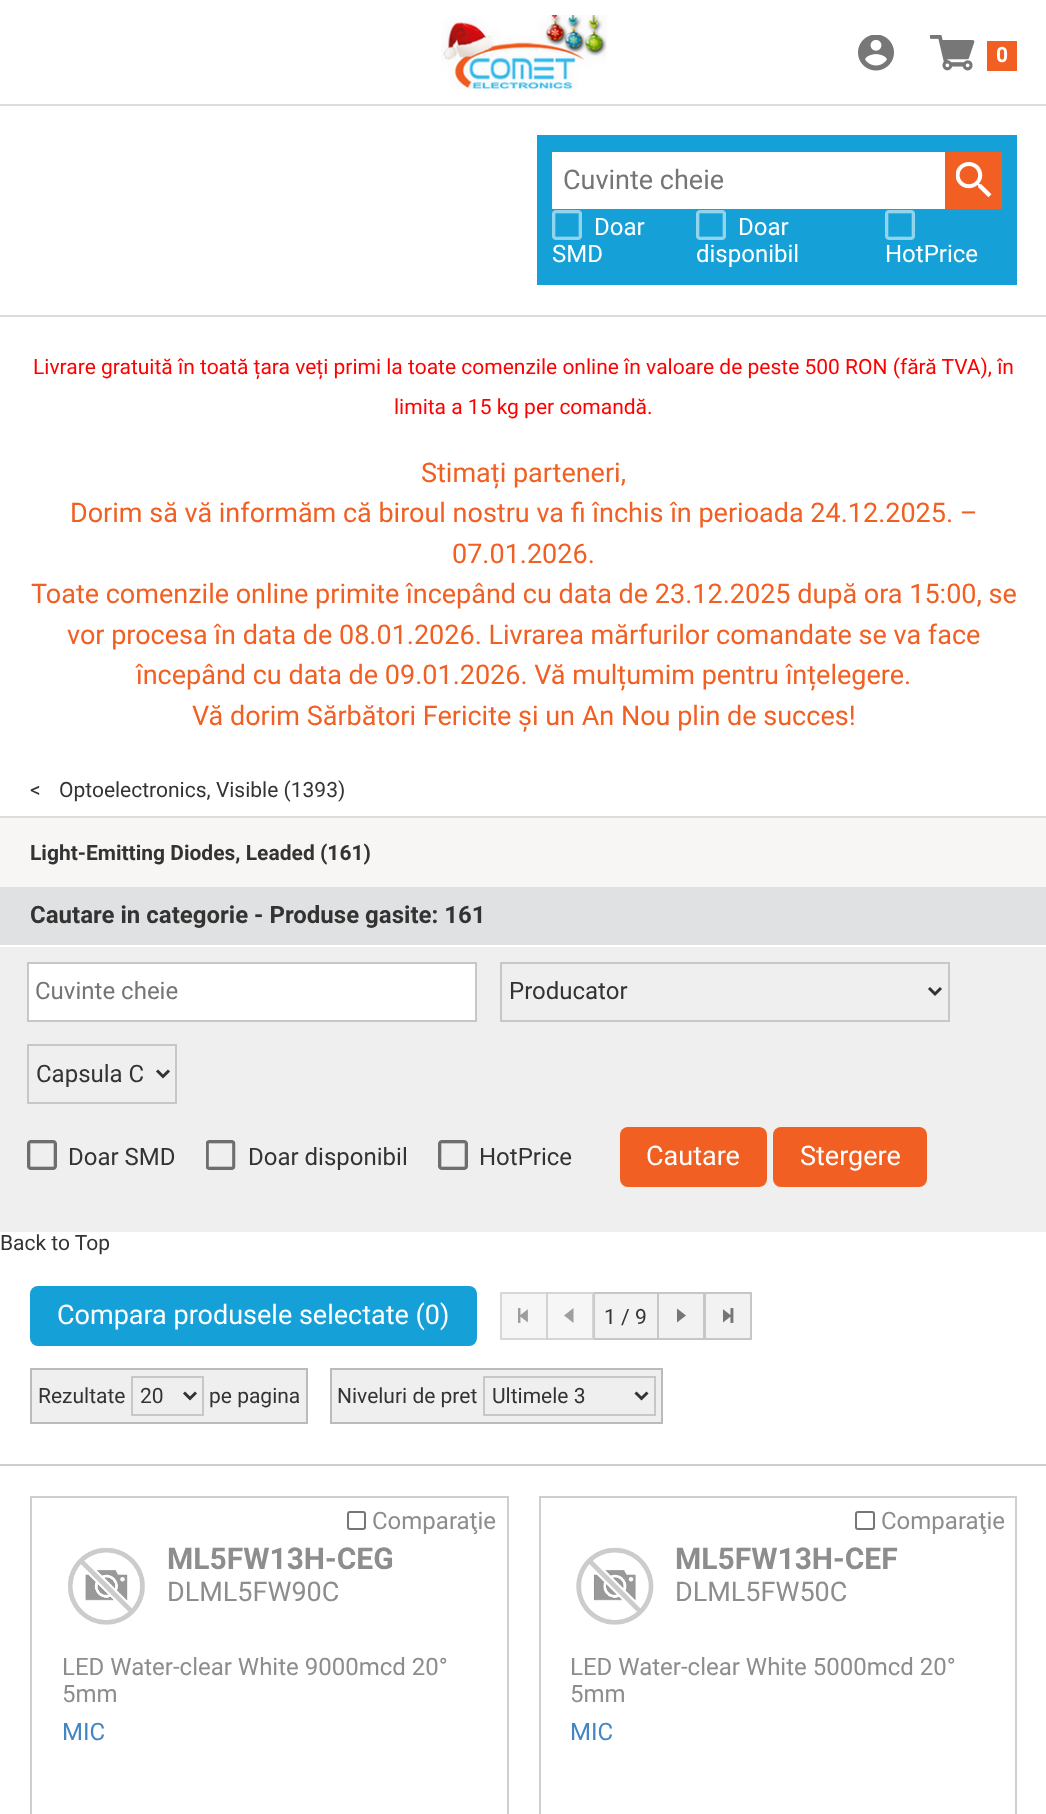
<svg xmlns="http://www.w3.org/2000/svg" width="1046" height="1814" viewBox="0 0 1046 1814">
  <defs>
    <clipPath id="clip1"><path d="M677 1308h9v15H677z"/></clipPath>
  </defs>
  <rect width="100%" height="100%" fill="#fff"/>
  <path d="M0 104h1046v2H0z" fill="#ddd"/>
  <image x="441" y="15" width="166" height="75" href="img/1.png"/>
  <image x="858" y="35" width="36" height="36" href="img/2.png"/>
  <path d="M987 41h30v30H987z" fill="#f15f22"/>
  <image x="930" y="35" width="45" height="36" href="img/3.png"/>
  <path d="M537 135h480v150H537z" fill="#15a1d8"/>
  <path d="M552 152h393v57H552z" fill="#fff"/>
  <path d="M945 152h57v57H945z" fill="#f15f22"/>
  <image x="956" y="162" width="36" height="36" href="img/4.png"/>
  <image x="552" y="210" width="30" height="30" href="img/5.png"/>
  <image x="696" y="210" width="30" height="30" href="img/5.png"/>
  <image x="885" y="210" width="30" height="30" href="img/5.png"/>
  <path d="M0 315h1046v2H0z" fill="#ddd"/>
  <path d="M0 818h1046v69H0z" fill="#f7f6f5"/>
  <path d="M0 816h1046v2H0z" fill="#ddd"/>
  <path d="M0 947h1046v285H0z" fill="#efefef"/>
  <path d="M0 887h1046v58H0z" fill="#e0e1e2"/>
  <path d="M28 963h448v58H28z" fill="#fff" stroke="#c7c7c7" stroke-width="2"/>
  <path d="M501 963h448v58H501z" fill="none" stroke="#c7c7c7" stroke-width="2"/>
  <path d="M929 988L935 994L941 988" fill="none" stroke="#333" stroke-width="3"/>
  <path d="M28 1045h148v58H28z" fill="none" stroke="#c7c7c7" stroke-width="2"/>
  <path d="M157 1070.5L163 1076.5L169 1070.5" fill="none" stroke="#333" stroke-width="3"/>
  <image x="27" y="1140" width="30" height="30" href="img/6.png"/>
  <image x="206" y="1140" width="30" height="30" href="img/7.png"/>
  <image x="438" y="1140" width="30" height="30" href="img/6.png"/>
  <rect x="620" y="1127" width="147" height="60" rx="8" fill="#f15f22"/>
  <rect x="773" y="1127" width="154" height="60" rx="8" fill="#f15f22"/>
  <rect x="30" y="1286" width="447" height="60" rx="8" fill="#15a1d8"/>
  <path d="M502 1294h44v44H502z" fill="#f6f6f6"/>
  <image x="518" y="1308" width="10" height="15" href="img/8.png"/>
  <path d="M501 1293h46v46H501z" fill="none" stroke="#d8d8d8" stroke-width="2"/>
  <path d="M594 1293h64v46H594z" fill="#f2f2f2" stroke="#c7c7c7" stroke-width="2"/>
  <path d="M546 1292h48v48H546z" fill="#f2f2f2b3"/>
  <path d="M564 1315.5L573.5 1323V1308Z" fill="#9f9f9f" fill-rule="evenodd"/>
  <path d="M547 1293h46v46H547z" fill="none" stroke="#c7c7c7b3" stroke-width="2"/>
  <path d="M659 1294h44v44H659z" fill="#f2f2f2"/>
  <g clip-path="url(#clip1)">
    <path d="M686 1315.5L676.5 1323V1308Z" fill="#767676" fill-rule="evenodd"/>
  </g>
  <path d="M658 1293h46v46H658z" fill="none" stroke="#c7c7c7" stroke-width="2"/>
  <path d="M706 1294h44v44H706z" fill="#f2f2f2"/>
  <image x="723" y="1308" width="11" height="15" href="img/9.png"/>
  <path d="M705 1293h46v46H705z" fill="none" stroke="#c7c7c7" stroke-width="2"/>
  <path d="M31 1369h276v54H31z" fill="#efefef" stroke="#bbb" stroke-width="2"/>
  <path d="M132 1377h71v38H132z" fill="none" stroke="#c7c7c7" stroke-width="2"/>
  <path d="M184 1392.5L190 1398.5L196 1392.5" fill="none" stroke="#333" stroke-width="3"/>
  <path d="M331 1369h331v54H331z" fill="#efefef" stroke="#bbb" stroke-width="2"/>
  <path d="M484 1377h171v38H484z" fill="none" stroke="#c7c7c7" stroke-width="2"/>
  <path d="M635.5 1392.5L641.5 1398.5L647.5 1392.5" fill="none" stroke="#333" stroke-width="3"/>
  <path d="M0 1464h1046v2H0z" fill="#cfcfcf"/>
  <path d="M31 1497h477v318H31z" fill="none" stroke="#cfcfcf" stroke-width="2"/>
  <rect x="348" y="1512" width="17" height="17" rx="2" fill="none" stroke="#767676" stroke-width="2"/>
  <image x="68" y="1547" width="77" height="78" href="img/10.png"/>
  <path d="M540 1497h476v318H540z" fill="none" stroke="#cfcfcf" stroke-width="2"/>
  <rect x="856" y="1512" width="18" height="17" rx="2" fill="none" stroke="#767676" stroke-width="2"/>
  <image x="576" y="1547" width="78" height="78" href="img/11.png"/>
  <text x="996" y="62" font-family="Roboto" font-size="21" font-weight="bold" fill="#fff">0</text>
  <text x="563" y="189" font-family="Roboto" font-size="27" fill="#757575">Cuvinte cheie</text>
  <g font-family="Roboto" font-size="24" fill="#fff">
    <text x="594" y="235">Doar</text>
    <text x="552" y="262">SMD</text>
    <text x="738" y="235">Doar</text>
    <text x="696" y="262">disponibil</text>
    <text x="885" y="262">HotPrice</text>
  </g>
  <g font-family="Roboto" font-size="21" fill="#f00">
    <text x="33" y="374">Livrare gratuită în toată țara veți primi la toate comenzile online în valoare de peste 500 RON (fără TVA), în</text>
    <text x="394" y="414">limita a 15 kg per comandă.</text>
  </g>
  <g font-family="Roboto" font-size="27" fill="#f15f22">
    <text x="421" y="482">Stimați parteneri,</text>
    <text x="70" y="522">Dorim să vă informăm că biroul nostru va fi închis în perioada 24.12.2025. –</text>
    <text x="452" y="563">07.01.2026.</text>
    <text x="31" y="603">Toate comenzile online primite începând cu data de 23.12.2025 după ora 15:00, se</text>
    <text x="67" y="644">vor procesa în data de 08.01.2026. Livrarea mărfurilor comandate se va face</text>
    <text x="136" y="684">începând cu data de 09.01.2026. Vă mulțumim pentru înțelegere.</text>
    <text x="192" y="725">Vă dorim Sărbători Fericite și un An Nou plin de succes!</text>
  </g>
  <g font-family="Roboto" font-size="21" fill="#333">
    <text x="30" y="797">&lt;</text>
    <text x="59" y="797">Optoelectronics, Visible (1393)</text>
  </g>
  <text x="30" y="860" font-family="Roboto" font-size="21" font-weight="bold" fill="#333">Light-Emitting Diodes, Leaded (161)</text>
  <text x="30" y="923" font-family="Roboto" font-size="24" font-weight="bold" fill="#333">Cautare in categorie - Produse gasite: 161</text>
  <text x="35" y="999" font-family="Roboto" font-size="24" fill="#757575">Cuvinte cheie</text>
  <g font-family="Roboto" font-size="24" fill="#333">
    <text x="509" y="999">Producator</text>
    <text x="36" y="1082">Capsula C</text>
    <text x="68" y="1165">Doar SMD</text>
    <text x="248" y="1165">Doar disponibil</text>
    <text x="479" y="1165">HotPrice</text>
  </g>
  <g font-family="Roboto" font-size="27" fill="#fff">
    <text x="646" y="1165">Cautare</text>
    <text x="800" y="1165">Stergere</text>
  </g>
  <text x="0" y="1250" font-family="Roboto" font-size="21" fill="#333">Back to Top</text>
  <text x="57" y="1324" font-family="Roboto" font-size="27" fill="#fff">Compara produsele selectate (0)</text>
  <g font-family="Roboto" font-size="21" fill="#333">
    <text x="604" y="1324">1 / 9</text>
    <text x="38" y="1403">Rezultate</text>
    <text x="140" y="1403">20</text>
    <text x="209" y="1403">pe pagina</text>
    <text x="337" y="1403">Niveluri de pret</text>
    <text x="492" y="1403">Ultimele 3</text>
  </g>
  <text x="372" y="1529" font-family="Roboto" font-size="24" fill="#8e8d8d">Comparaţie</text>
  <text x="167" y="1569" font-family="Roboto" font-size="30" font-weight="bold" fill="#8e8d8d">ML5FW13H-CEG</text>
  <text x="167" y="1601" font-family="Roboto" font-size="27" fill="#8e8d8d">DLML5FW90C</text>
  <g font-family="Roboto" font-size="24" fill="#8e8d8d">
    <text x="62" y="1675">LED Water-clear White 9000mcd 20°</text>
    <text x="62" y="1702">5mm</text>
  </g>
  <text x="62" y="1740" font-family="Roboto" font-size="24" fill="#4485c4">MIC</text>
  <text x="881" y="1529" font-family="Roboto" font-size="24" fill="#8e8d8d">Comparaţie</text>
  <text x="675" y="1569" font-family="Roboto" font-size="30" font-weight="bold" fill="#8e8d8d">ML5FW13H-CEF</text>
  <text x="675" y="1601" font-family="Roboto" font-size="27" fill="#8e8d8d">DLML5FW50C</text>
  <g font-family="Roboto" font-size="24" fill="#8e8d8d">
    <text x="570" y="1675">LED Water-clear White 5000mcd 20°</text>
    <text x="570" y="1702">5mm</text>
  </g>
  <text x="570" y="1740" font-family="Roboto" font-size="24" fill="#4485c4">MIC</text>
</svg>
